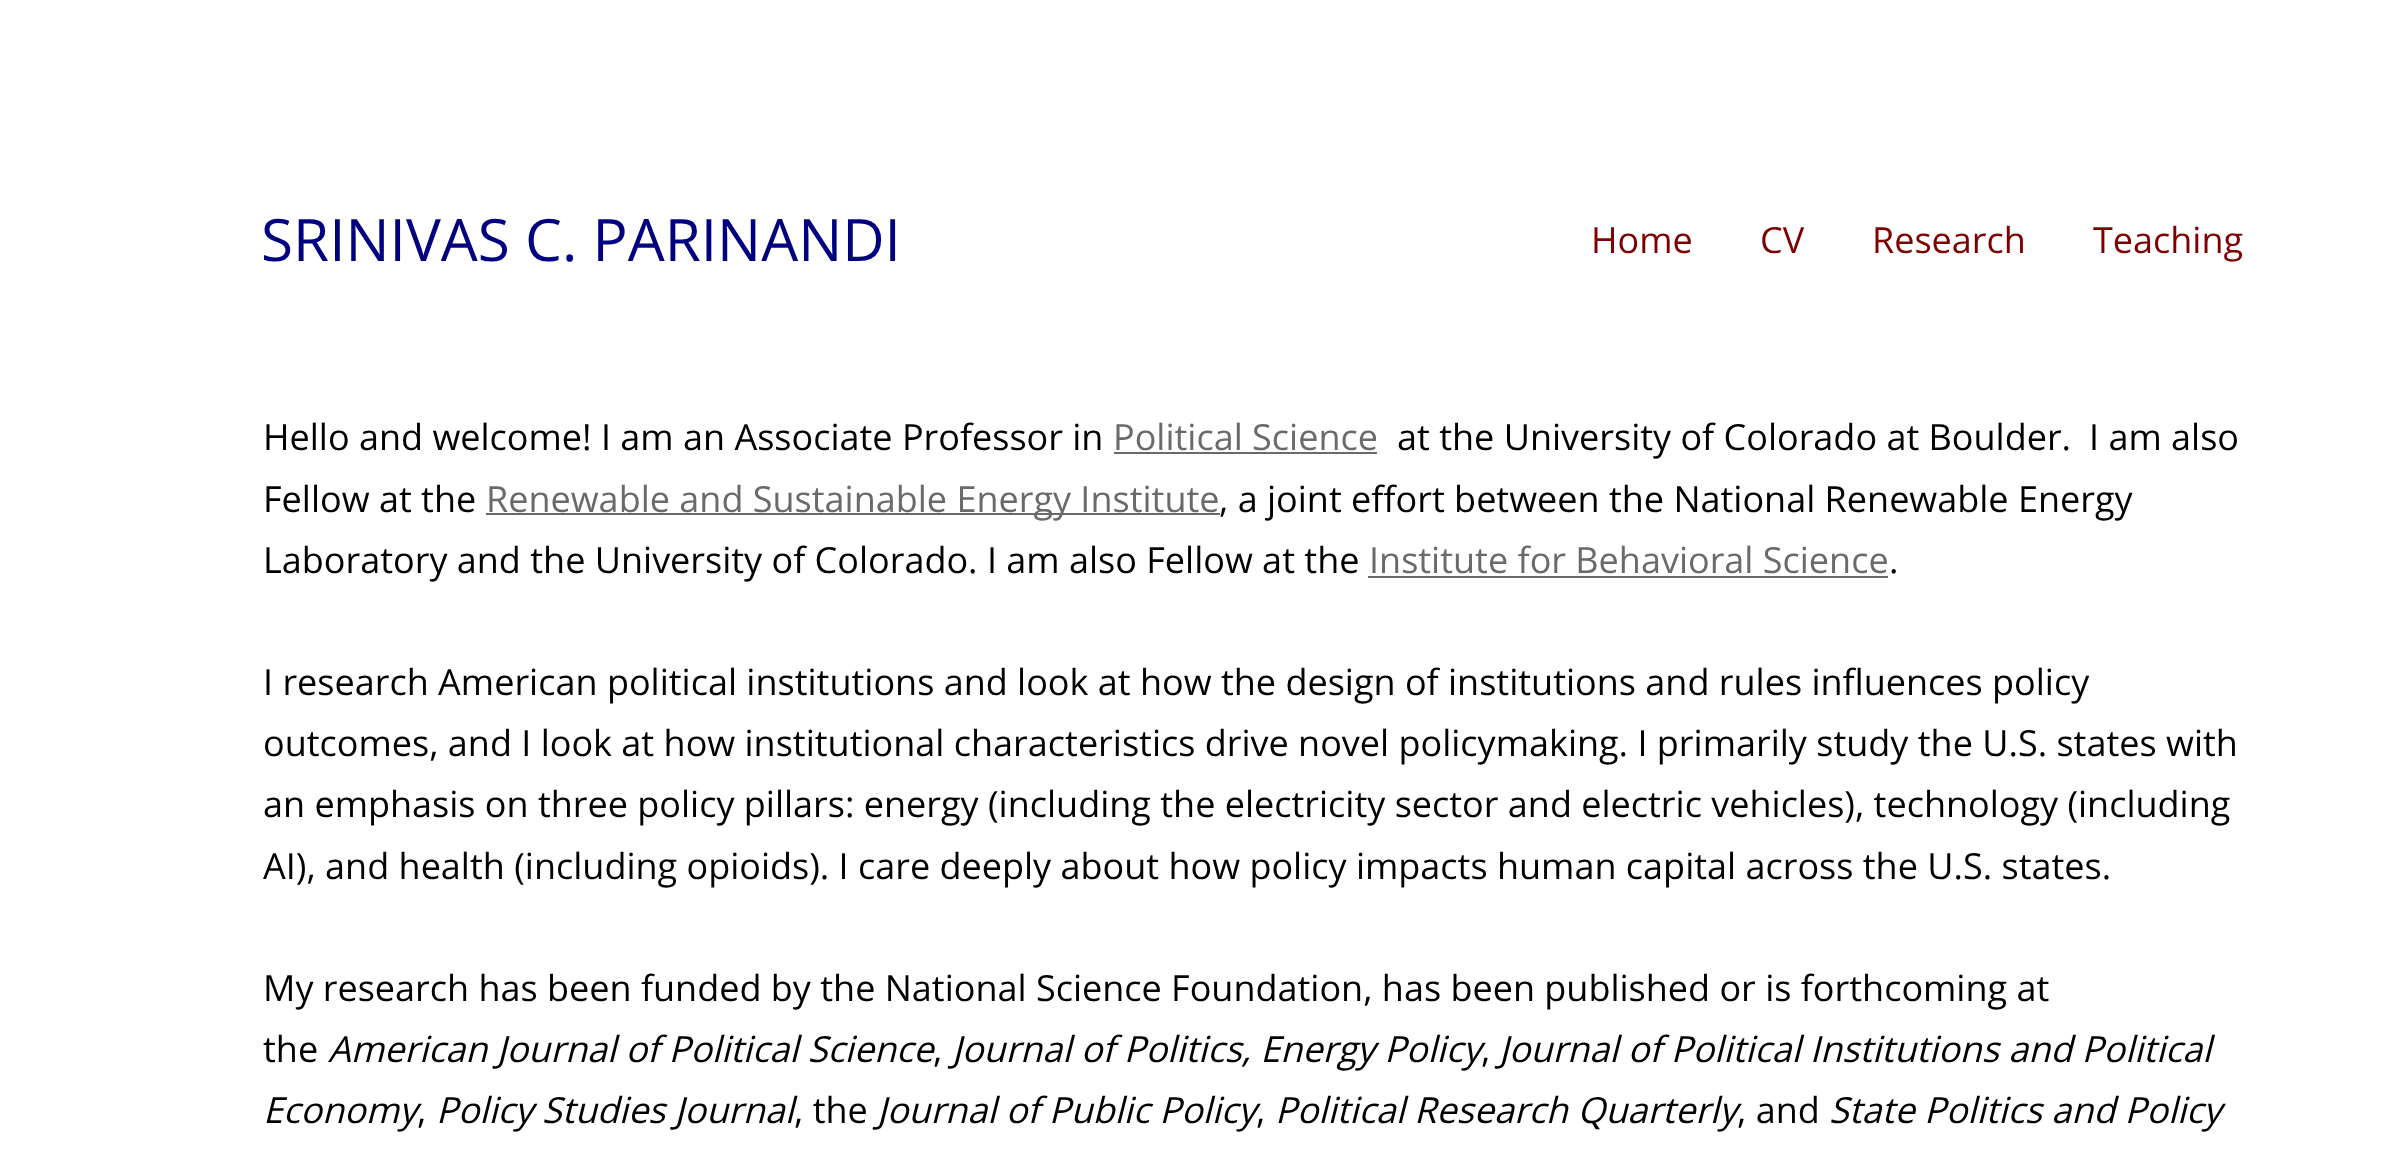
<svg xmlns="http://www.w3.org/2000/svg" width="2397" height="1162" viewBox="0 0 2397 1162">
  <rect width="100%" height="100%" fill="#fff"/>
  <path d="M1114 452h263v2H1114z" fill="#6a6a6a"/>
  <path d="M486 513h734v2H486z" fill="#6a6a6a"/>
  <path d="M1368 576h520v2H1368z" fill="#6a6a6a"/>
  <text x="261" y="261" font-family="Open Sans" font-size="58.5" fill="#000080">SRINIVAS C. PARINANDI</text>
  <g font-family="Open Sans" font-size="36" fill="#7f0000">
    <text x="1591" y="253">Home</text>
    <text x="1760" y="253">CV</text>
    <text x="1872" y="253">Research</text>
    <text x="2093" y="253">Teaching</text>
  </g>
  <text x="263" y="450" font-family="Open Sans" font-size="36" fill="#000">Hello and welcome! I am an Associate Professor in</text>
  <text x="1113" y="450" font-family="Open Sans" font-size="36" fill="#6a6a6a">Political Science</text>
  <g font-family="Open Sans" font-size="36" fill="#000">
    <text x="1397" y="450">at the University of Colorado at Boulder.</text>
    <text x="2089" y="450">I am also</text>
    <text x="263" y="512">Fellow at the</text>
  </g>
  <text x="486" y="512" font-family="Open Sans" font-size="36" fill="#6a6a6a">Renewable and Sustainable Energy Institute</text>
  <g font-family="Open Sans" font-size="36" fill="#000">
    <text x="1219" y="512">, a joint effort between the National Renewable Energy</text>
    <text x="263" y="573">Laboratory and the University of Colorado. I am also Fellow at the</text>
  </g>
  <text x="1369" y="573" font-family="Open Sans" font-size="36" fill="#6a6a6a">Institute for Behavioral Science</text>
  <g font-family="Open Sans" font-size="36" fill="#000">
    <text x="1889" y="573">.</text>
    <text x="263" y="695">I research American political institutions and look at how the design of institutions and rules influences policy</text>
    <text x="263" y="756">outcomes, and I look at how institutional characteristics drive novel policymaking. I primarily study the U.S. states with</text>
    <text x="263" y="817">an emphasis on three policy pillars: energy (including the electricity sector and electric vehicles), technology (including</text>
    <text x="263" y="879">AI), and health (including opioids). I care deeply about how policy impacts human capital across the U.S. states.</text>
    <text x="263" y="1001">My research has been funded by the National Science Foundation, has been published or is forthcoming at</text>
    <text x="263" y="1062">the</text>
  </g>
  <text x="328" y="1062" font-family="Open Sans" font-size="36" font-style="italic" fill="#000">American Journal of Political Science</text>
  <text x="933" y="1062" font-family="Open Sans" font-size="36" fill="#000">,</text>
  <g font-family="Open Sans" font-size="36" font-style="italic" fill="#000">
    <text x="952" y="1062">Journal of Politics, Energy Policy</text>
    <text x="1499" y="1062">Journal of Political Institutions and Political</text>
  </g>
  <text x="1481" y="1062" font-family="Open Sans" font-size="36" fill="#000">,</text>
  <g font-family="Open Sans" font-size="36" font-style="italic" fill="#000">
    <text x="263" y="1123">Economy</text>
    <text x="436" y="1123">Policy Studies Journal</text>
  </g>
  <text x="794" y="1123" font-family="Open Sans" font-size="36" fill="#000">, the</text>
  <g font-family="Open Sans" font-size="36" font-style="italic" fill="#000">
    <text x="877" y="1123">Journal of Public Policy</text>
    <text x="1275" y="1123">Political Research Quarterly</text>
  </g>
  <text x="1737" y="1123" font-family="Open Sans" font-size="36" fill="#000">, and</text>
  <text x="1829" y="1123" font-family="Open Sans" font-size="36" font-style="italic" fill="#000">State Politics and Policy</text>
  <g font-family="Open Sans" font-size="36" fill="#000">
    <text x="417" y="1123">,</text>
    <text x="1256" y="1123">,</text>
  </g>
</svg>
